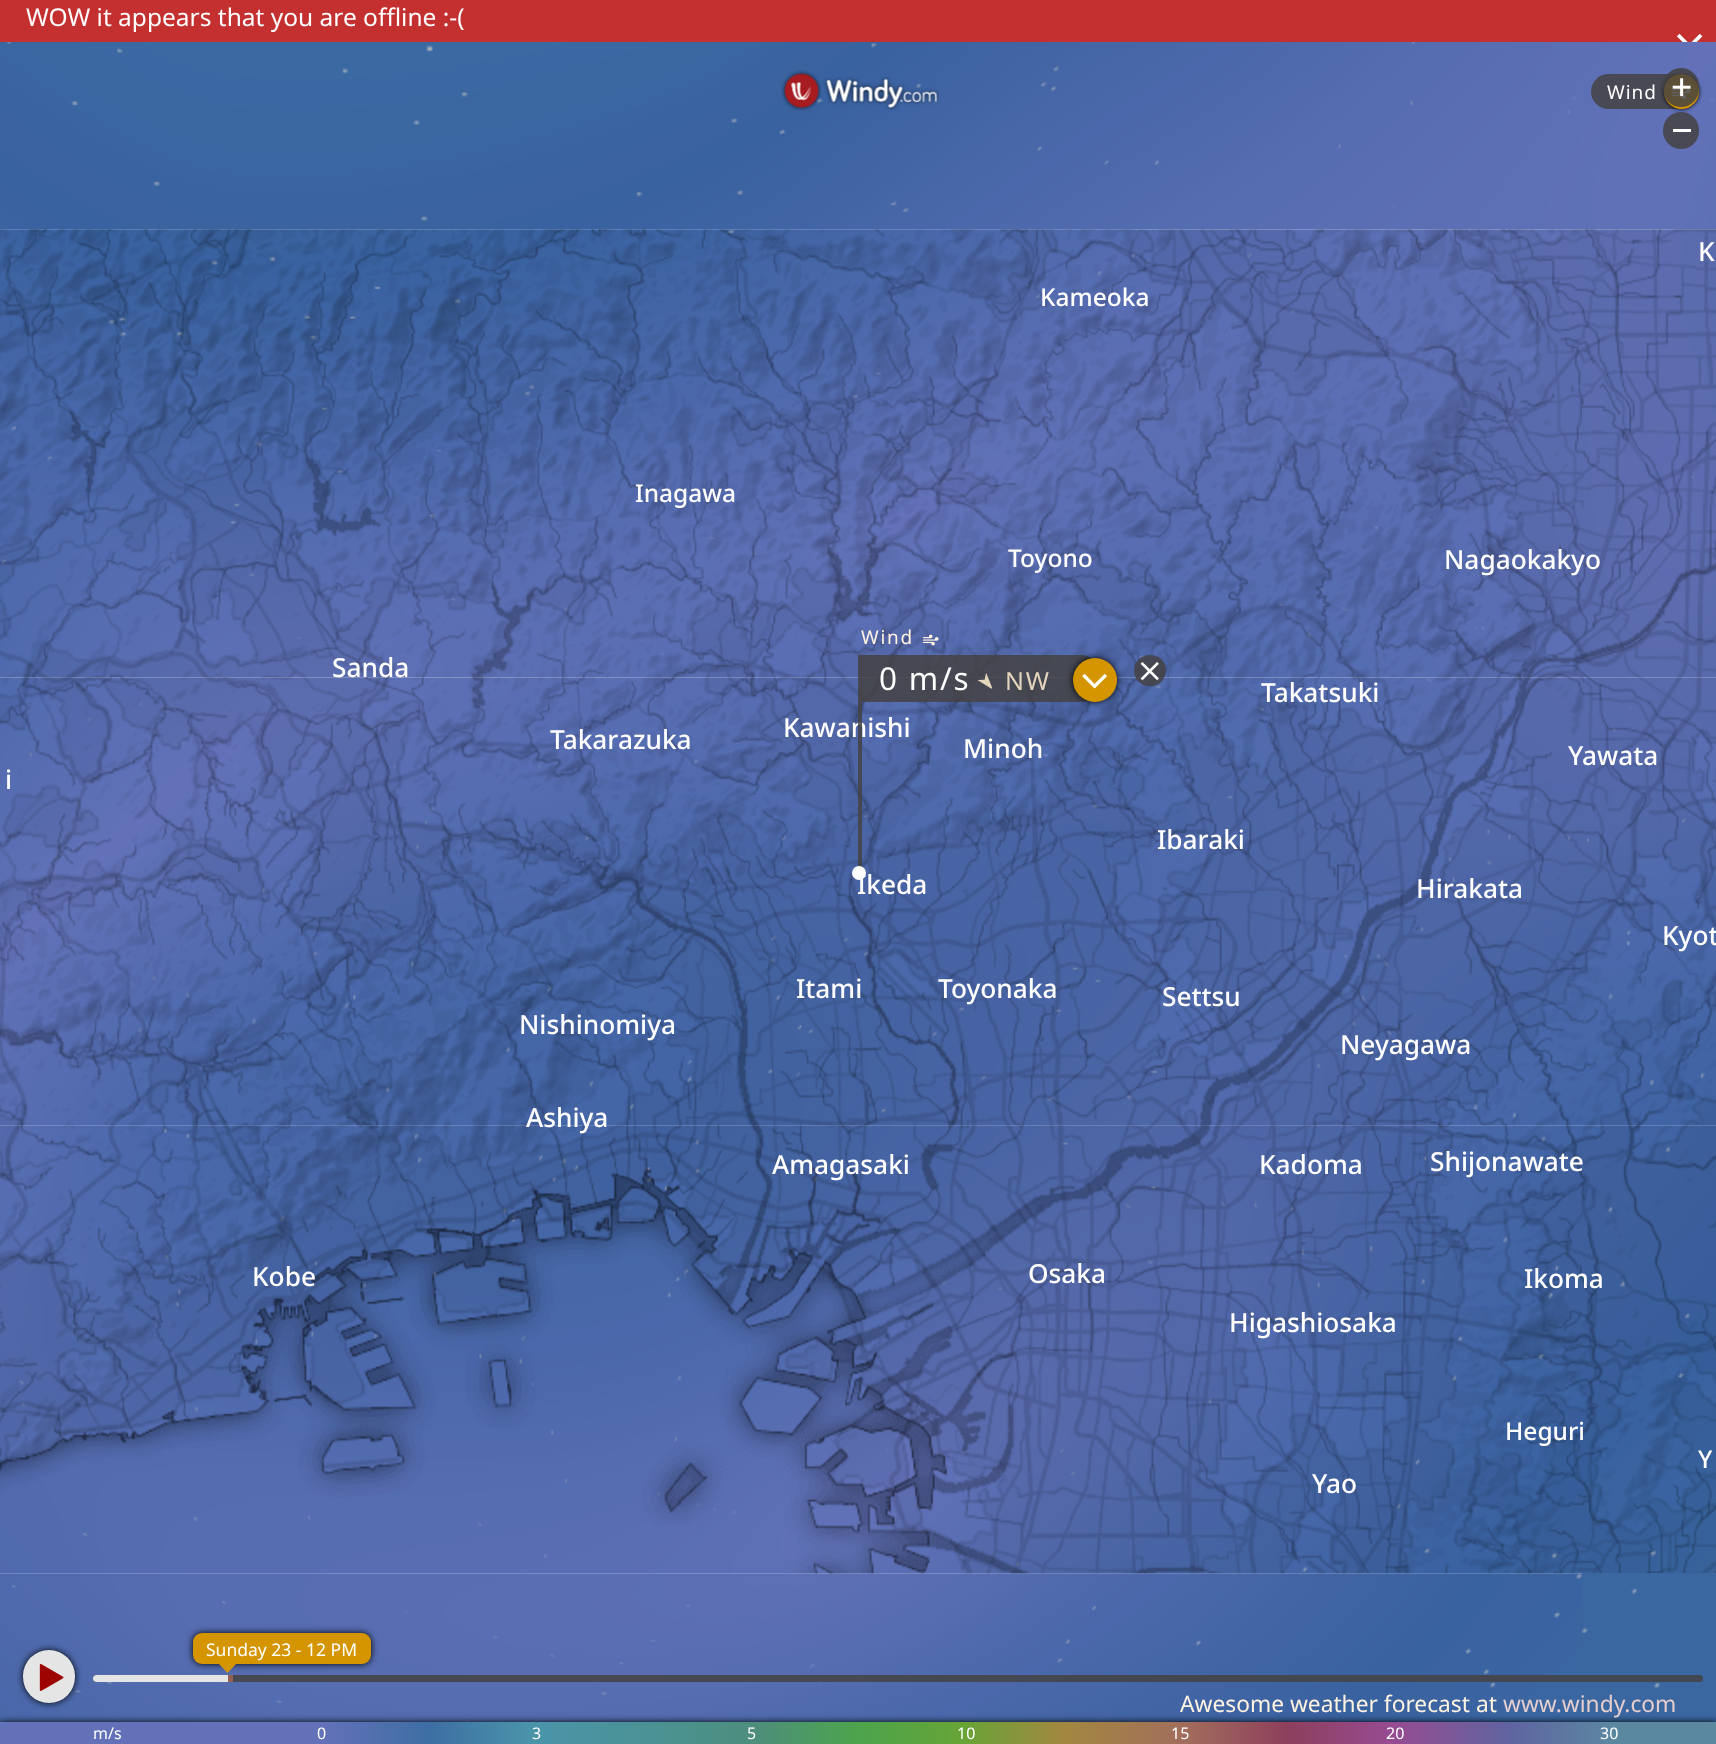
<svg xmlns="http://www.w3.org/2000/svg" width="1716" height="1744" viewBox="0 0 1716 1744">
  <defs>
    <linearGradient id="g1" gradientUnits="userSpaceOnUse" x1="0" y1="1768" x2="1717" y2="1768"><stop offset="0" stop-color="#6271b8"/><stop offset="0.19" stop-color="#6271b8"/><stop offset="0.25" stop-color="#3d6ea3"/><stop offset="0.31" stop-color="#4a94aa"/><stop offset="0.38" stop-color="#4a9294"/><stop offset="0.44" stop-color="#4d8e7c"/><stop offset="0.5" stop-color="#4ca44c"/><stop offset="0.56" stop-color="#67a436"/><stop offset="0.62" stop-color="#a28740"/><stop offset="0.69" stop-color="#a26d5c"/><stop offset="0.75" stop-color="#8d3f5c"/><stop offset="0.81" stop-color="#974b91"/><stop offset="0.88" stop-color="#5f64a0"/><stop offset="0.94" stop-color="#5b88a1"/><stop offset="1" stop-color="#5b88a1"/></linearGradient>
  </defs>
  <rect width="100%" height="100%" fill="#fff"/>
  <path d="M0 0h1716v42H0z" fill="#c42f2f"/>
  <image x="1677" y="33" width="26" height="9" href="img/1.png"/>
  <image x="686" y="229" width="448" height="448" href="img/13.png"/>
  <image x="686" y="42" width="448" height="188" href="img/8.png"/>
  <image x="0" y="229" width="238" height="448" href="img/11.png"/>
  <image x="0" y="42" width="238" height="188" href="img/6.png"/>
  <image x="238" y="229" width="448" height="448" href="img/12.png"/>
  <image x="238" y="42" width="448" height="188" href="img/7.png"/>
  <image x="1134" y="42" width="448" height="187" href="img/9.png"/>
  <image x="1582" y="42" width="134" height="187" href="img/10.png"/>
  <image x="1134" y="229" width="448" height="448" href="img/14.png"/>
  <image x="1582" y="229" width="134" height="448" href="img/15.png"/>
  <image x="0" y="677" width="238" height="449" href="img/16.png"/>
  <image x="238" y="677" width="448" height="449" href="img/17.png"/>
  <image x="686" y="677" width="448" height="449" href="img/18.png"/>
  <image x="1134" y="677" width="448" height="449" href="img/19.png"/>
  <image x="1582" y="677" width="134" height="449" href="img/20.png"/>
  <image x="0" y="1125" width="238" height="449" href="img/21.png"/>
  <image x="238" y="1125" width="448" height="449" href="img/22.png"/>
  <image x="686" y="1125" width="448" height="449" href="img/23.png"/>
  <image x="1134" y="1125" width="448" height="449" href="img/24.png"/>
  <image x="1582" y="1125" width="134" height="448" href="img/25.png"/>
  <image x="0" y="1573" width="238" height="149" href="img/26.png"/>
  <image x="238" y="1573" width="448" height="149" href="img/27.png"/>
  <image x="686" y="1573" width="448" height="149" href="img/28.png"/>
  <image x="1134" y="1573" width="448" height="149" href="img/29.png"/>
  <path d="M1582 1573h134v149H1582z" fill="#3b67a1"/>
  <image x="1" y="42" width="1713" height="1680" href="img/30.png"/>
  <image x="781" y="70" width="41" height="41" href="img/2.png"/>
  <image x="823" y="76" width="117" height="35" href="img/3.png"/>
  <rect x="1591" y="74" width="108" height="35" rx="17.5" fill="#444141d6"/>
  <rect x="1664" y="74" width="35" height="35" rx="17.5" fill="#000" filter="blur(2px)"/>
  <circle cx="1681.5" cy="91.5" r="17.5" fill="#d49500"/>
  <image x="1671" y="88" width="20" height="12" href="img/4.png"/>
  <rect x="1663" y="68" width="36" height="39" rx="18" fill="#444141d6"/>
  <image x="1672" y="78" width="19" height="19" href="img/5.png"/>
  <rect x="1663" y="112" width="36" height="37" rx="18" fill="#444141d6"/>
  <path d="M1673 129h18v3H1673z" fill="#fff"/>
  <image x="0" y="229" width="238" height="448" href="img/31.png"/>
  <image x="238" y="677" width="448" height="449" href="img/37.png"/>
  <image x="238" y="229" width="448" height="449" href="img/32.png"/>
  <image x="686" y="677" width="448" height="449" href="img/38.png"/>
  <image x="686" y="229" width="448" height="449" href="img/33.png"/>
  <image x="1134" y="677" width="448" height="449" href="img/39.png"/>
  <image x="1134" y="229" width="448" height="449" href="img/34.png"/>
  <image x="1582" y="229" width="134" height="448" href="img/35.png"/>
  <image x="0" y="677" width="238" height="448" href="img/36.png"/>
  <image x="1582" y="677" width="134" height="448" href="img/40.png"/>
  <image x="0" y="1125" width="238" height="376" href="img/41.png"/>
  <image x="238" y="1125" width="448" height="400" href="img/42.png"/>
  <image x="686" y="1125" width="448" height="449" href="img/43.png"/>
  <image x="1134" y="1125" width="448" height="449" href="img/44.png"/>
  <image x="1582" y="1125" width="134" height="448" href="img/45.png"/>
  <image x="922" y="634" width="17" height="12" href="img/46.png"/>
  <rect x="1134" y="655" width="32" height="31" rx="15.5" fill="#444141d6"/>
  <image x="1140" y="662" width="19" height="19" href="img/49.png"/>
  <rect x="23" y="1650" width="52" height="53" rx="26" fill="#000" filter="blur(3.5px)"/>
  <rect x="23" y="1650" width="52" height="53" rx="26" fill="#e5e5e5"/>
  <image x="39" y="1664" width="25" height="27" href="img/50.png"/>
  <rect x="193" y="1633" width="178" height="31" rx="9" fill="#000" filter="blur(3.5px)"/>
  <rect x="193" y="1633" width="178" height="31" rx="9" fill="#d49500"/>
  <path d="M219 1664H236L227.5 1673Z" fill="#d49500"/>
  <rect x="93" y="1675" width="1610" height="7" rx="3.5" fill="#444141d6"/>
  <path d="M96.5 1675H228V1682H96.5C94.5 1682 93 1680.5 93 1678.5C93 1676.5 94.5 1675 96.5 1675Z" fill="#e5e5e5"/>
  <path d="M228 1675h5v7H228z" fill="#946051"/>
  <path d="M0 1722h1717v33H0z" fill="#000" filter="blur(3.5px)"/>
  <path d="M0 1722h1716v22H0z" fill="url(#g1)"/>
  <text x="26" y="26" font-family="Noto Sans" font-size="24.5" fill="#fff">WOW it appears that you are offline :-(</text>
  <text x="1607" y="99" font-family="Noto Sans" font-size="19" letter-spacing="1" fill="#fff">Wind</text>
  <text x="1698" y="261" font-family="Noto Sans" font-size="26.25" font-weight="500" fill="#fff">K</text>
  <g font-family="Noto Sans" font-size="24.5" font-weight="500" fill="#fff">
    <text x="1040" y="306">Kameoka</text>
    <text x="635" y="502">Inagawa</text>
    <text x="1008" y="567">Toyono</text>
  </g>
  <g font-family="Noto Sans" font-size="26.25" font-weight="500" fill="#fff">
    <text x="1444" y="569">Nagaokakyo</text>
    <text x="332" y="677">Sanda</text>
    <text x="5" y="789">i</text>
    <text x="550" y="749">Takarazuka</text>
    <text x="519" y="1034">Nishinomiya</text>
    <text x="526" y="1127">Ashiya</text>
    <text x="783" y="737">Kawanishi</text>
    <text x="963" y="758">Minoh</text>
    <text x="857" y="894">Ikeda</text>
    <text x="796" y="998">Itami</text>
    <text x="938" y="998">Toyonaka</text>
    <text x="1261" y="702">Takatsuki</text>
    <text x="1157" y="849">Ibaraki</text>
    <text x="1416" y="898">Hirakata</text>
    <text x="1162" y="1006">Settsu</text>
    <text x="1340" y="1054">Neyagawa</text>
    <text x="1568" y="765">Yawata</text>
    <text x="1662" y="945">Kyot</text>
    <text x="252" y="1286">Kobe</text>
    <text x="772" y="1174">Amagasaki</text>
    <text x="1028" y="1283">Osaka</text>
    <text x="1259" y="1174">Kadoma</text>
    <text x="1430" y="1171">Shijonawate</text>
    <text x="1524" y="1288">Ikoma</text>
    <text x="1229" y="1332">Higashiosaka</text>
  </g>
  <text x="1505" y="1440" font-family="Noto Sans" font-size="24.5" font-weight="500" fill="#fff">Heguri</text>
  <text x="1312" y="1493" font-family="Noto Sans" font-size="26.25" font-weight="500" fill="#fff">Yao</text>
  <text x="1698" y="1468" font-family="Noto Sans" font-size="24.5" font-weight="500" fill="#fff">Y</text>
  <path d="M858 655h4v218H858z" fill="#444141d6"/>
  <circle cx="859" cy="873" r="7" fill="#fff"/>
  <path d="M861 655H1079.5C1092.5 655 1103 665.5 1103 678.5C1103 691.5 1092.5 702 1079.5 702H861Z" fill="#444141d6"/>
  <text x="861" y="644" font-family="Noto Sans" font-size="19" letter-spacing="1.75" fill="#fff3e1">Wind</text>
  <text x="879" y="690" font-family="Noto Sans" font-size="31.5" letter-spacing="1.75" fill="#fff">0 m/s</text>
  <image x="977" y="673" width="16" height="16" href="img/47.png"/>
  <text x="1005" y="690" font-family="Noto Sans" font-size="25" letter-spacing="1.75" fill="#e4d5bd">NW</text>
  <rect x="1073" y="658" width="44" height="44" rx="22" fill="#000" filter="blur(3.5px)"/>
  <circle cx="1095" cy="680" r="22" fill="#d49500"/>
  <image x="1082" y="674" width="25" height="15" href="img/48.png"/>
  <text x="206" y="1656" font-family="Noto Sans" font-size="17.5" fill="#fff">Sunday 23 - 12 PM</text>
  <text x="1180" y="1712" font-family="Noto Sans" font-size="22.75" fill="#fff3e1">Awesome weather forecast at</text>
  <text x="1503" y="1712" font-family="Noto Sans" font-size="22.75" fill="#e6cece">www.windy.com</text>
  <g font-family="Noto Sans" font-size="16" fill="#fff">
    <text x="93" y="1739">m/s</text>
    <text x="317" y="1739">0</text>
    <text x="532" y="1739">3</text>
    <text x="747" y="1739">5</text>
    <text x="957" y="1739">10</text>
    <text x="1171" y="1739">15</text>
    <text x="1386" y="1739">20</text>
    <text x="1600" y="1739">30</text>
  </g>
</svg>
